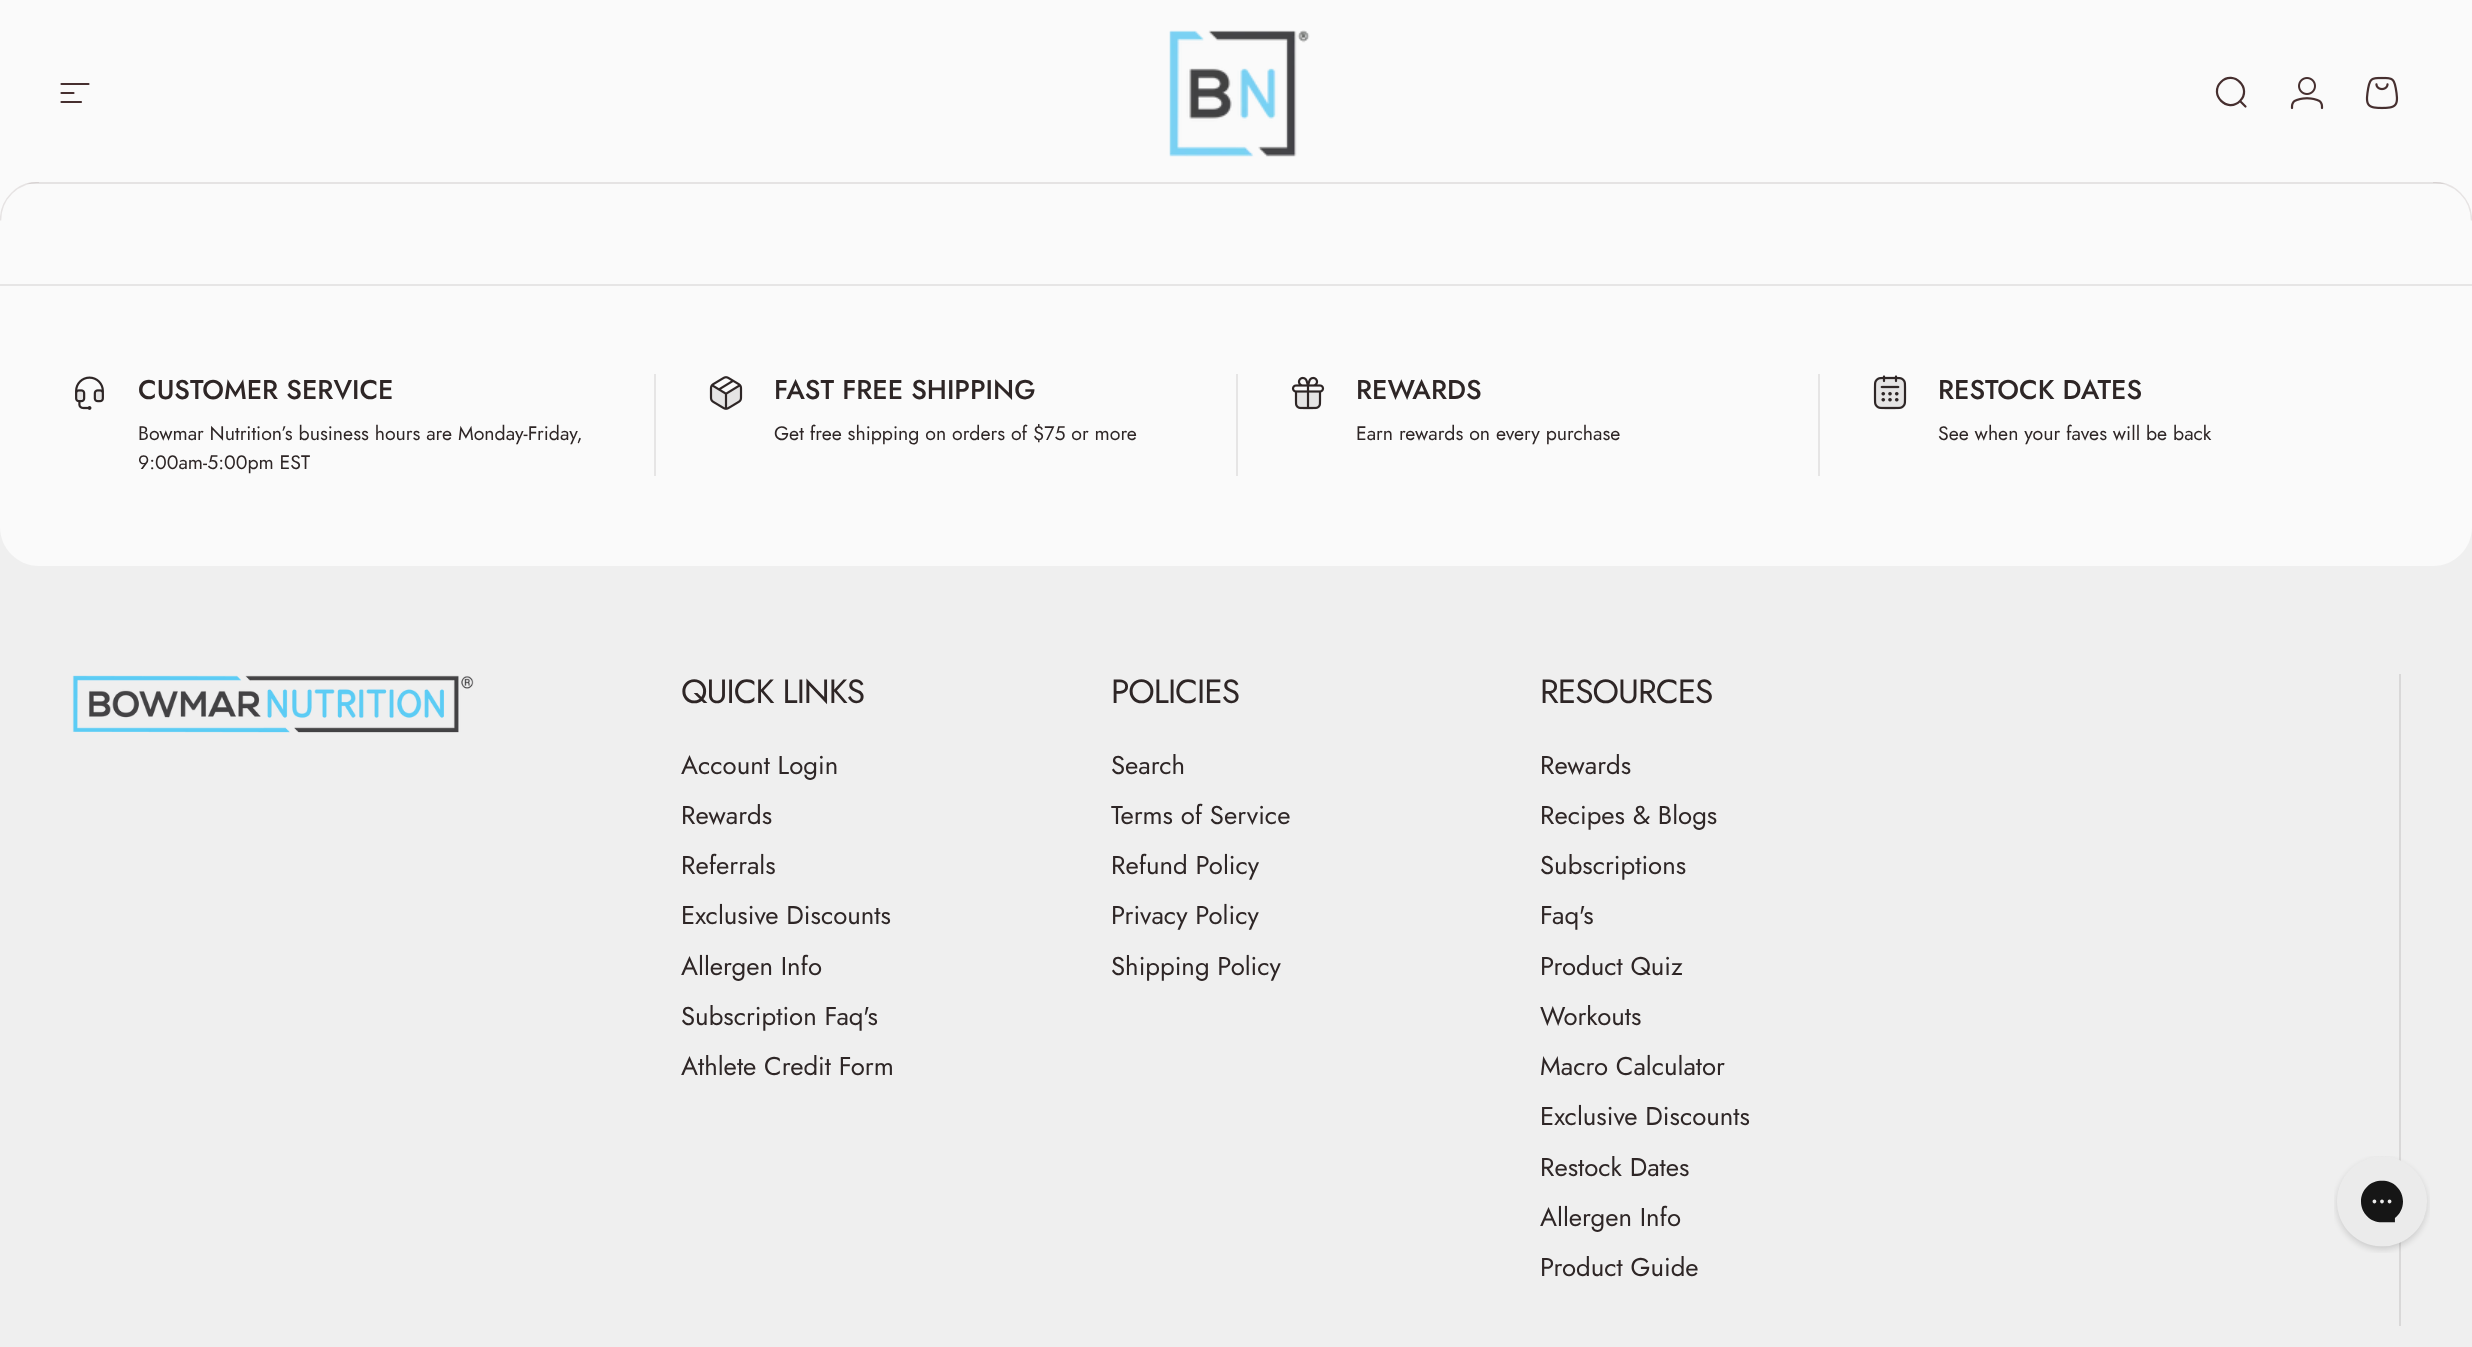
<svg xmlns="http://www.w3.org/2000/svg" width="2472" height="1347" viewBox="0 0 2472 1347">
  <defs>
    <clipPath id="clip1"><path d="M0 182h39v39H0z"/></clipPath>
    <clipPath id="clip2"><path d="M2433 182h39v39H2433z"/></clipPath>
  </defs>
  <rect width="100%" height="100%" fill="#fafafa"/>
  <path d="M61.5 84H88.5M61.5 93H73.5M61.5 102H81" fill="none" stroke="#462f2f" stroke-width="2.2" stroke-linecap="round"/>
  <image x="1169" y="30" width="141" height="127" href="img/1.png"/>
  <path d="M2245.5 106.5L2240 101M2240 101C2252.5 88.5 2233.5 69.5 2221 82C2208.5 94.5 2227.5 113.5 2240 101Z" fill="none" stroke="#462f2f" stroke-width="2.2" stroke-linecap="round"/>
  <image x="2290" y="77" width="34" height="33" href="img/2.png"/>
  <image x="2365" y="76" width="34" height="34" href="img/3.png"/>
  <path d="M26 182h2420v2H26z" fill="#e5e3e3"/>
  <g clip-path="url(#clip1)">
    <path d="M39 181.5H0V220.5H.5C.5 199 17.5 182 39 182Z" fill="#fafafa" fill-rule="evenodd"/>
    <path d="M.5 220.5C.5 199 17.5 182 39 182" fill="none" stroke="#462f2f1c" stroke-width="1.4"/>
  </g>
  <g clip-path="url(#clip2)">
    <path d="M2433 181.5H2472V220.5H2471.5C2471.5 199 2454.5 182 2433 182Z" fill="#fafafa" fill-rule="evenodd"/>
    <path d="M2471.5 220.5C2471.5 199 2454.5 182 2433 182" fill="none" stroke="#462f2f1c" stroke-width="1.4"/>
  </g>
  <path d="M0 527h2472v820H0z" fill="#efefef"/>
  <path d="M0 284H2472V527C2472 548.5 2454.5 566 2433 566H39C17.5 566 0 548.5 0 527Z" fill="#fafafa"/>
  <path d="M0 284h2472v2H0z" fill="#e6e5e5"/>
  <image x="75" y="376" width="29" height="34" href="img/4.png"/>
  <path d="M654 374h2v102H654z" fill="#e6e5e5"/>
  <image x="709" y="376" width="34" height="34" href="img/5.png"/>
  <path d="M1236 374h2v102H1236z" fill="#e6e5e5"/>
  <image x="1291" y="376" width="34" height="34" href="img/6.png"/>
  <path d="M1818 374h2v102H1818z" fill="#e6e5e5"/>
  <image x="1873" y="375" width="34" height="35" href="img/7.png"/>
  <path d="M2399 674h2v652H2399z" fill="#d9d8d8"/>
  <image x="72" y="675" width="402" height="58" href="img/8.png"/>
  <image x="2334" y="1156" width="96" height="97" href="img/9.png"/>
  <text x="138" y="399" font-family="Jost" font-size="27" font-weight="500" fill="#2e2626">CUSTOMER SERVICE</text>
  <g font-family="Jost" font-size="19.5" fill="#2e2626">
    <text x="138" y="440">Bowmar Nutrition’s business hours are Monday-Friday,</text>
    <text x="138" y="469">9:00am-5:00pm EST</text>
  </g>
  <text x="774" y="399" font-family="Jost" font-size="27" font-weight="500" fill="#2e2626">FAST FREE SHIPPING</text>
  <text x="774" y="440" font-family="Jost" font-size="19.5" fill="#2e2626">Get free shipping on orders of $75 or more</text>
  <text x="1356" y="399" font-family="Jost" font-size="27" font-weight="500" fill="#2e2626">REWARDS</text>
  <text x="1356" y="440" font-family="Jost" font-size="19.5" fill="#2e2626">Earn rewards on every purchase</text>
  <text x="1938" y="399" font-family="Jost" font-size="27" font-weight="500" fill="#2e2626">RESTOCK DATES</text>
  <text x="1938" y="440" font-family="Jost" font-size="19.5" fill="#2e2626">See when your faves will be back</text>
  <text x="681" y="703" font-family="Jost" font-size="33.5" letter-spacing="-1" fill="#2e2626">QUICK LINKS</text>
  <g font-family="Jost" font-size="25.75" fill="#2e2626">
    <text x="681" y="774">Account Login</text>
    <text x="681" y="824">Rewards</text>
    <text x="681" y="874">Referrals</text>
    <text x="681" y="924">Exclusive Discounts</text>
    <text x="681" y="975">Allergen Info</text>
    <text x="681" y="1025">Subscription Faq's</text>
    <text x="681" y="1075">Athlete Credit Form</text>
  </g>
  <text x="1111" y="703" font-family="Jost" font-size="33.5" letter-spacing="-1" fill="#2e2626">POLICIES</text>
  <g font-family="Jost" font-size="25.75" fill="#2e2626">
    <text x="1111" y="774">Search</text>
    <text x="1111" y="824">Terms of Service</text>
    <text x="1111" y="874">Refund Policy</text>
    <text x="1111" y="924">Privacy Policy</text>
    <text x="1111" y="975">Shipping Policy</text>
  </g>
  <text x="1540" y="703" font-family="Jost" font-size="33.5" letter-spacing="-1" fill="#2e2626">RESOURCES</text>
  <g font-family="Jost" font-size="25.75" fill="#2e2626">
    <text x="1540" y="774">Rewards</text>
    <text x="1540" y="824">Recipes &amp; Blogs</text>
    <text x="1540" y="874">Subscriptions</text>
    <text x="1540" y="924">Faq's</text>
    <text x="1540" y="975">Product Quiz</text>
    <text x="1540" y="1025">Workouts</text>
    <text x="1540" y="1075">Macro Calculator</text>
    <text x="1540" y="1125">Exclusive Discounts</text>
    <text x="1540" y="1176">Restock Dates</text>
    <text x="1540" y="1226">Allergen Info</text>
    <text x="1540" y="1276">Product Guide</text>
  </g>
</svg>
